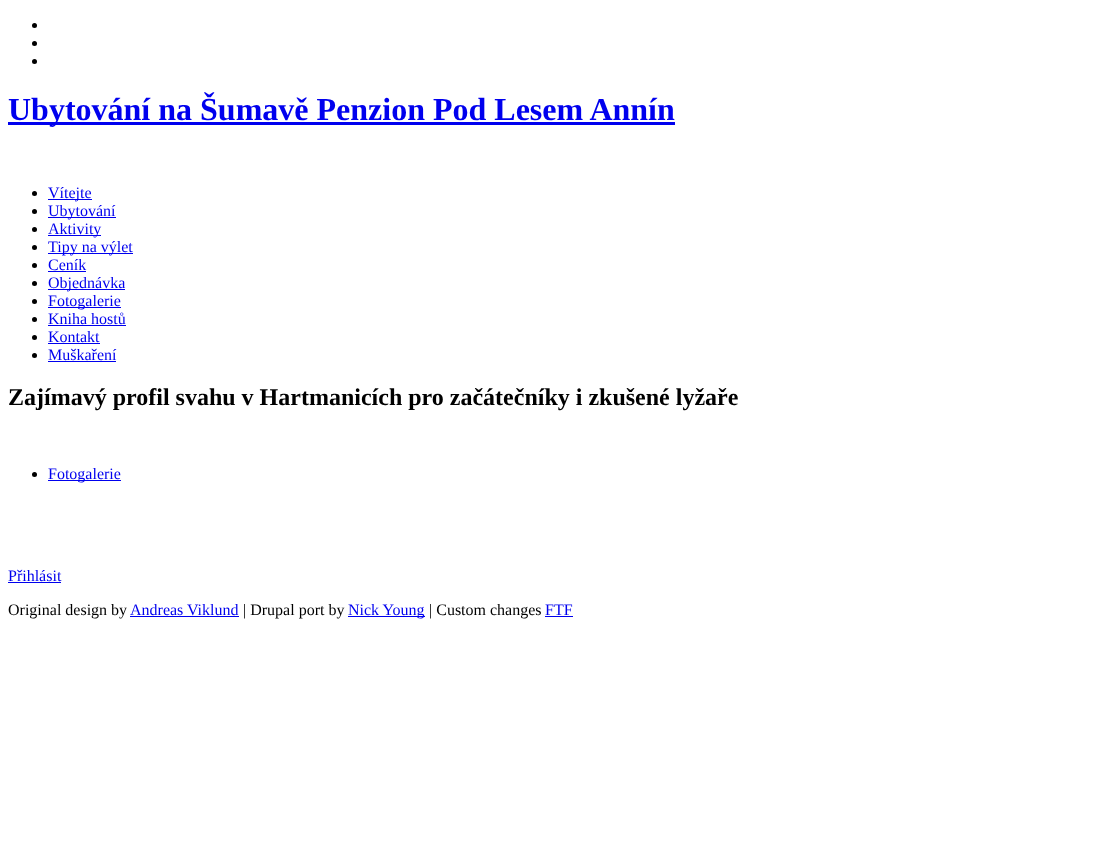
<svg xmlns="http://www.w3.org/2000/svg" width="1105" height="844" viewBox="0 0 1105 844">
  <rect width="100%" height="100%" fill="#fff"/>
  <circle cx="34.5" cy="25.5" r="2.5" fill="#000"/>
  <circle cx="34.5" cy="43.5" r="2.5" fill="#000"/>
  <circle cx="34.5" cy="61.5" r="2.5" fill="#000"/>
  <path d="M8 122h667v3H8z" fill="#00e"/>
  <circle cx="34.5" cy="193.5" r="2.5" fill="#000"/>
  <path d="M48 199h44v1H48z" fill="#00e"/>
  <circle cx="34.5" cy="211.5" r="2.5" fill="#000"/>
  <path d="M48 217h68v1H48z" fill="#00e"/>
  <circle cx="34.5" cy="229.5" r="2.5" fill="#000"/>
  <path d="M48 235h53v1H48z" fill="#00e"/>
  <circle cx="34.5" cy="247.5" r="2.5" fill="#000"/>
  <path d="M48 253h85v1H48z" fill="#00e"/>
  <circle cx="34.5" cy="265.5" r="2.5" fill="#000"/>
  <path d="M48 271h38v1H48z" fill="#00e"/>
  <circle cx="34.5" cy="283.5" r="2.5" fill="#000"/>
  <path d="M48 289h77v1H48z" fill="#00e"/>
  <circle cx="34.5" cy="301.5" r="2.5" fill="#000"/>
  <path d="M48 307h73v1H48z" fill="#00e"/>
  <circle cx="34.5" cy="319.5" r="2.5" fill="#000"/>
  <path d="M48 325h78v1H48z" fill="#00e"/>
  <circle cx="34.5" cy="337.5" r="2.5" fill="#000"/>
  <path d="M48 343h52v1H48z" fill="#00e"/>
  <circle cx="34.5" cy="355.5" r="2.5" fill="#000"/>
  <path d="M48 361h68v1H48z" fill="#00e"/>
  <circle cx="34.5" cy="474.5" r="2.5" fill="#000"/>
  <path d="M48 480h73v1H48z" fill="#00e"/>
  <path d="M8 582h53v1H8z" fill="#00e"/>
  <path d="M130 616h109v1H130z" fill="#00e"/>
  <path d="M348 616h77v1H348z" fill="#00e"/>
  <path d="M545 616h28v1H545z" fill="#00e"/>
  <text x="8" y="120" font-family="Liberation Serif" font-size="32" font-weight="bold" fill="#00e">Ubytování na Šumavě Penzion Pod Lesem Annín</text>
  <g font-family="Liberation Serif" font-size="16" fill="#00e">
    <text x="48" y="198">Vítejte</text>
    <text x="48" y="216">Ubytování</text>
    <text x="48" y="234">Aktivity</text>
    <text x="48" y="252">Tipy na výlet</text>
    <text x="48" y="270">Ceník</text>
    <text x="48" y="288">Objednávka</text>
    <text x="48" y="306">Fotogalerie</text>
    <text x="48" y="324">Kniha hostů</text>
    <text x="48" y="342">Kontakt</text>
    <text x="48" y="360">Muškaření</text>
  </g>
  <text x="8" y="405" font-family="Liberation Serif" font-size="24" font-weight="bold" fill="#000">Zajímavý profil svahu v Hartmanicích pro začátečníky i zkušené lyžaře</text>
  <g font-family="Liberation Serif" font-size="16" fill="#00e">
    <text x="48" y="479">Fotogalerie</text>
    <text x="8" y="581">Přihlásit</text>
  </g>
  <text x="8" y="615" font-family="Liberation Serif" font-size="16" fill="#000">Original design by</text>
  <text x="130" y="615" font-family="Liberation Serif" font-size="16" fill="#00e">Andreas Viklund</text>
  <text x="243" y="615" font-family="Liberation Serif" font-size="16" fill="#000">| Drupal port by</text>
  <text x="348" y="615" font-family="Liberation Serif" font-size="16" fill="#00e">Nick Young</text>
  <text x="429" y="615" font-family="Liberation Serif" font-size="16" fill="#000">| Custom changes</text>
  <text x="545" y="615" font-family="Liberation Serif" font-size="16" fill="#00e">FTF</text>
</svg>
